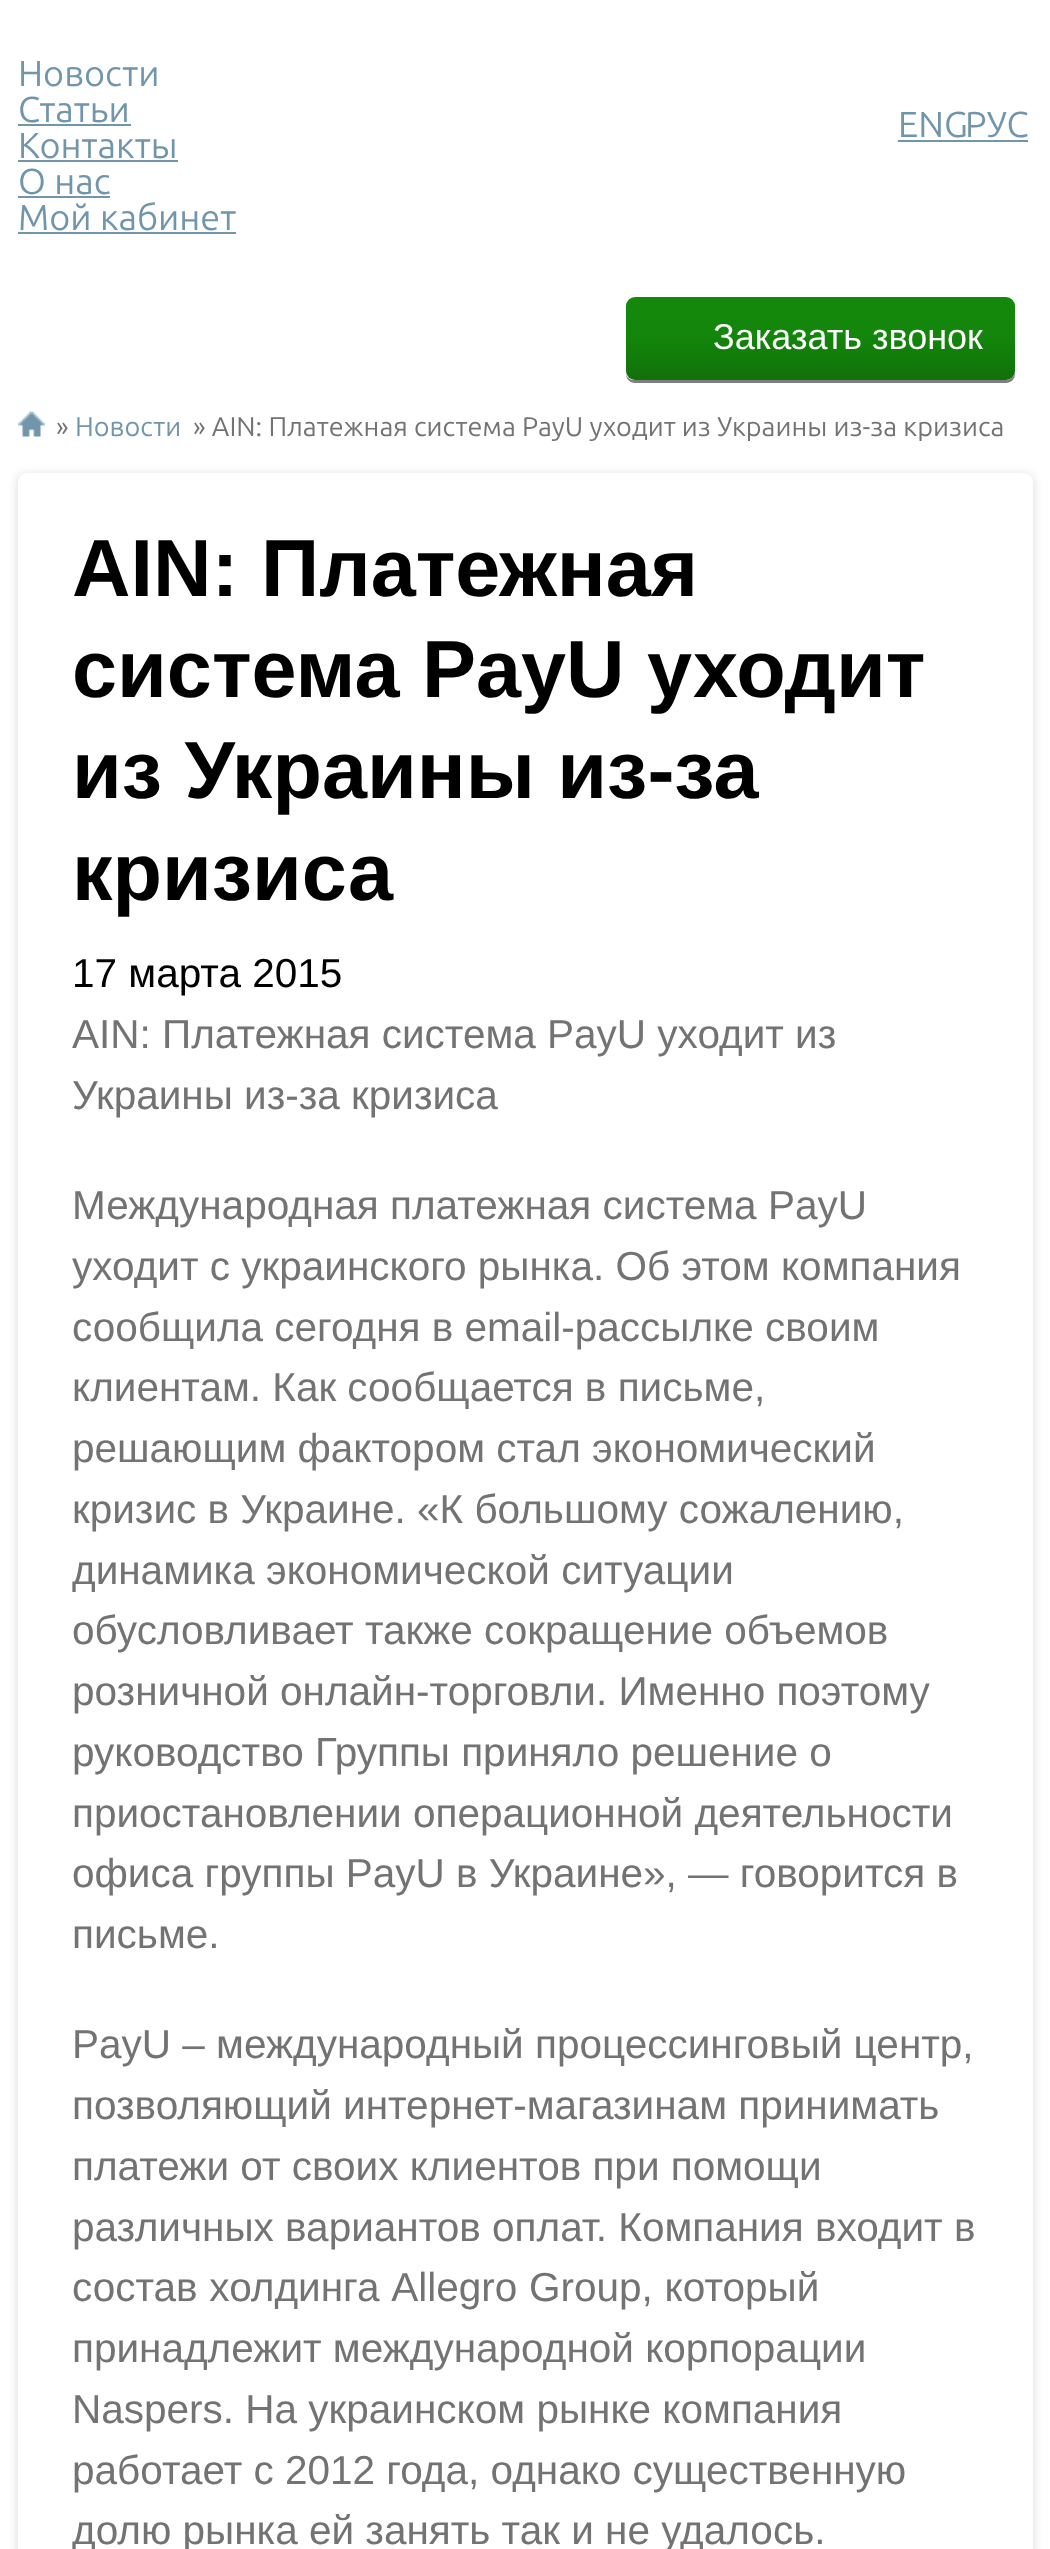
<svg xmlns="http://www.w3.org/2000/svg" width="1050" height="2549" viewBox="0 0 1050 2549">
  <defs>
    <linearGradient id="g1" gradientUnits="userSpaceOnUse" x1="820" y1="297" x2="820" y2="380"><stop offset="0" stop-color="#13890b"/><stop offset="0.46" stop-color="#13860b"/><stop offset="1" stop-color="#11710a"/></linearGradient>
  </defs>
  <rect width="100%" height="100%" fill="#fff"/>
  <path d="M18 124h113v2H18z" fill="#7196ac"/>
  <path d="M18 160h160v2H18z" fill="#7196ac"/>
  <path d="M18 196h92v2H18z" fill="#7196ac"/>
  <path d="M18 232h218v2H18z" fill="#7196ac"/>
  <path d="M898 140h130v2H898z" fill="#7196ac"/>
  <path d="M626 374C626 379 630 383 635 383H1006C1011 383 1015 379 1015 374V306V371C1015 376 1011 380 1006 380H634C631 380 627 378 626 374Z" fill="#7f7f7f"/>
  <rect x="626" y="297" width="389" height="83" rx="9" fill="url(#g1)"/>
  <image x="18" y="411" width="27" height="26" href="img/1.png"/>
  <rect x="16" y="473" width="1019" height="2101" rx="11" fill="#0000001a" filter="blur(4.5px)"/>
  <rect x="18" y="473" width="1015" height="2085" rx="9" fill="#fff"/>
  <g font-family="Ubuntu" font-size="36" fill="#7196ac">
    <text x="18" y="86">Новости</text>
    <text x="18" y="122">Статьи</text>
    <text x="18" y="158">Контакты</text>
    <text x="18" y="194">О нас</text>
    <text x="18" y="230">Мой кабинет</text>
    <text x="898" y="137">ENG</text>
    <text x="965" y="137">РУС</text>
  </g>
  <text x="713" y="349" font-family="Liberation Sans" font-size="36" fill="#fff">Заказать звонок</text>
  <text x="56" y="436" font-family="Ubuntu" font-size="27" fill="#737373">»</text>
  <text x="75" y="436" font-family="Ubuntu" font-size="27" fill="#7196ac">Новости</text>
  <text x="193" y="436" font-family="Ubuntu" font-size="27" fill="#737373">» AIN: Платежная система PayU уходит из Украины из-за кризиса</text>
  <g font-family="Liberation Sans" font-size="81" font-weight="bold" fill="#000">
    <text x="72" y="596">AIN: Платежная</text>
    <text x="72" y="697">система PayU уходит</text>
    <text x="72" y="798">из Украины из-за</text>
    <text x="72" y="900">кризиса</text>
  </g>
  <text x="72" y="987" font-family="Liberation Sans" font-size="40.5" fill="#000">17 марта 2015</text>
  <g font-family="Liberation Sans" font-size="40.5" fill="#737373">
    <text x="72" y="1048">AIN: Платежная система PayU уходит из</text>
    <text x="72" y="1109">Украины из-за кризиса</text>
    <text x="72" y="1219">Международная платежная система PayU</text>
    <text x="72" y="1280">уходит с украинского рынка. Об этом компания</text>
    <text x="72" y="1341">сообщила сегодня в email-рассылке своим</text>
    <text x="72" y="1401">клиентам. Как сообщается в письме,</text>
    <text x="72" y="1462">решающим фактором стал экономический</text>
    <text x="72" y="1523">кризис в Украине. «К большому сожалению,</text>
    <text x="72" y="1584">динамика экономической ситуации</text>
    <text x="72" y="1644">обусловливает также сокращение объемов</text>
    <text x="72" y="1705">розничной онлайн-торговли. Именно поэтому</text>
    <text x="72" y="1766">руководство Группы приняло решение о</text>
    <text x="72" y="1827">приостановлении операционной деятельности</text>
    <text x="72" y="1887">офиса группы PayU в Украине», — говорится в</text>
    <text x="72" y="1948">письме.</text>
    <text x="72" y="2058">PayU – международный процессинговый центр,</text>
    <text x="72" y="2119">позволяющий интернет-магазинам принимать</text>
    <text x="72" y="2180">платежи от своих клиентов при помощи</text>
    <text x="72" y="2241">различных вариантов оплат. Компания входит в</text>
    <text x="72" y="2301" word-spacing="0.5">состав холдинга Allegro Group, который</text>
    <text x="72" y="2362">принадлежит международной корпорации</text>
    <text x="72" y="2423">Naspers. На украинском рынке компания</text>
    <text x="72" y="2484">работает с 2012 года, однако существенную</text>
    <text x="72" y="2544">долю рынка ей занять так и не удалось.</text>
  </g>
</svg>
